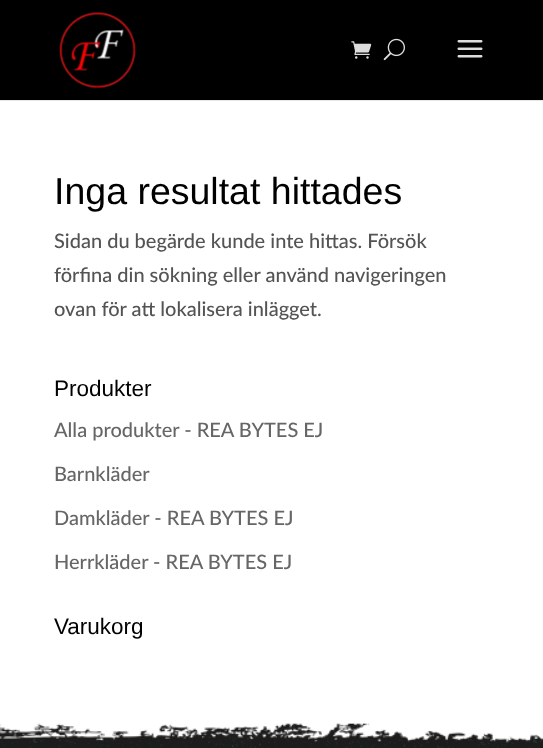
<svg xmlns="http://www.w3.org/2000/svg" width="543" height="748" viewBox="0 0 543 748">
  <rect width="100%" height="100%" fill="#fff"/>
  <path d="M0 100V101H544V1V100Z" fill="#e6e6e6"/>
  <path d="M0 0h543v100H0z" fill="#000"/>
  <image x="59" y="12" width="77" height="76" href="img/1.png"/>
  <image x="351" y="41" width="21" height="18" href="img/2.png"/>
  <image x="383" y="38" width="22" height="23" href="img/3.png"/>
  <image x="457" y="40" width="26" height="18" href="img/4.png"/>
  <path d="M0 723h543v25H0z" fill="#1c1c1c"/>
  <image x="0" y="723" width="542" height="25" href="img/5.png"/>
  <image x="0" y="723" width="543" height="20" href="img/6.png"/>
  <text x="54" y="204" font-family="Liberation Sans" font-size="37.5" fill="#000">Inga resultat hittades</text>
  <g font-family="Lato" font-size="20" font-weight="500" fill="#545454">
    <text x="54" y="248">Sidan du begärde kunde inte hittas. Försök</text>
    <text x="54" y="282">förfina din sökning eller använd navigeringen</text>
    <text x="54" y="316">ovan för att lokalisera inlägget.</text>
  </g>
  <text x="54" y="396" font-family="Liberation Sans" font-size="22.5" fill="#000">Produkter</text>
  <g font-family="Lato" font-size="20" font-weight="500" fill="#666">
    <text x="54" y="437">Alla produkter - REA BYTES EJ</text>
    <text x="54" y="481">Barnkläder</text>
    <text x="54" y="525">Damkläder - REA BYTES EJ</text>
    <text x="54" y="569">Herrkläder - REA BYTES EJ</text>
  </g>
  <text x="54" y="634" font-family="Liberation Sans" font-size="22.5" fill="#000">Varukorg</text>
</svg>
